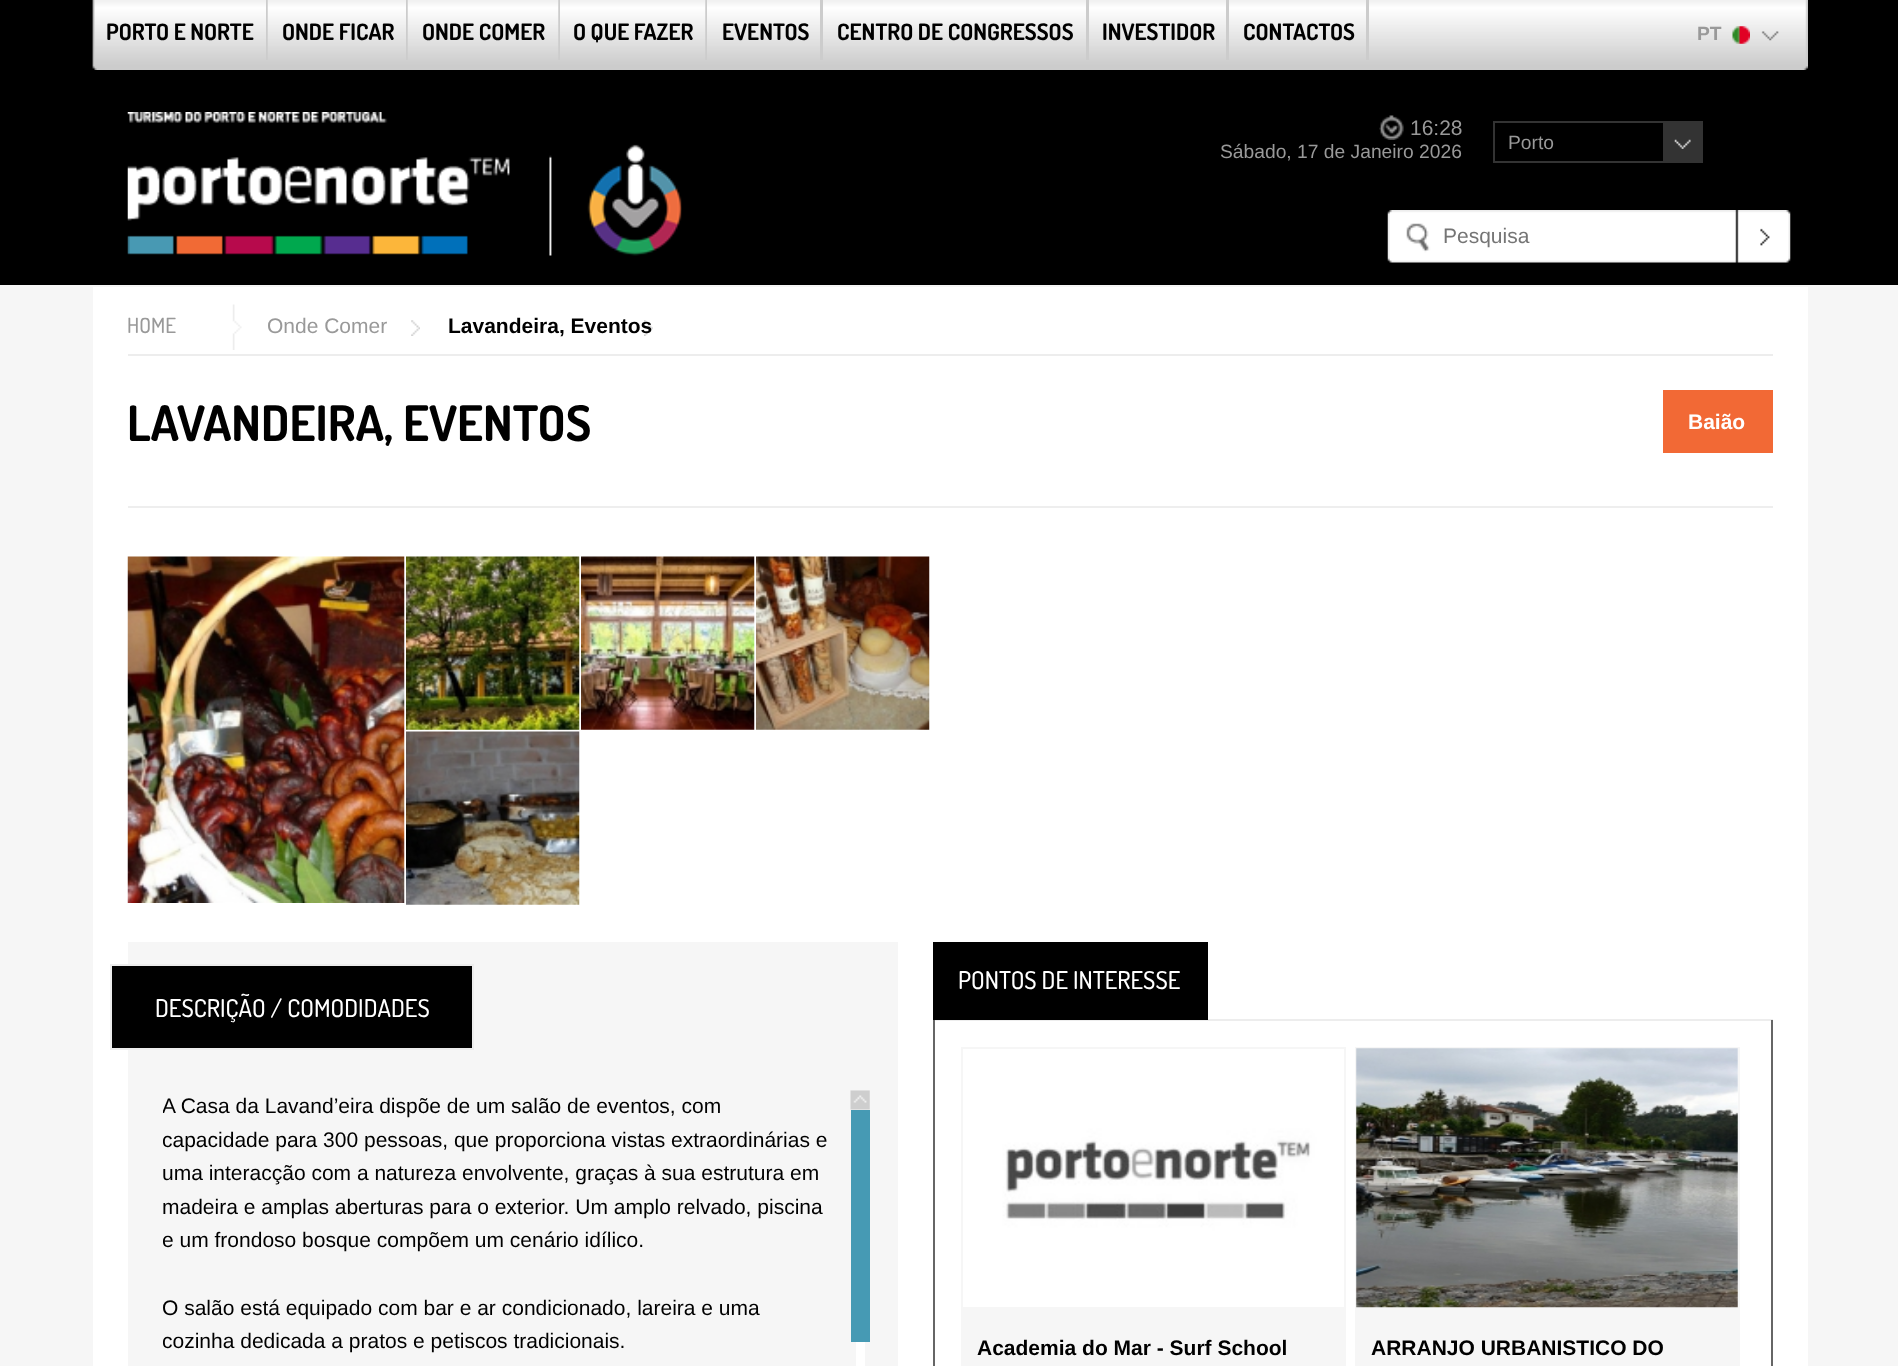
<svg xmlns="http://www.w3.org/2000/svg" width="1898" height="1366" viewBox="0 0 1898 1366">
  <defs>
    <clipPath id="clip1"><path d="M163 1090h709v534H163z"/></clipPath>
  </defs>
  <rect width="100%" height="100%" fill="#f6f6f6"/>
  <path d="M0 0h1898v285H0z" fill="#000"/>
  <image x="92" y="0" width="1716" height="70" href="img/1.png"/>
  <image x="266" y="0" width="2" height="60" href="img/2.png"/>
  <image x="406" y="0" width="2" height="60" href="img/2.png"/>
  <image x="558" y="0" width="2" height="60" href="img/3.png"/>
  <image x="705" y="0" width="2" height="60" href="img/3.png"/>
  <path d="M820 0h3v60H820z" fill="#ccc"/>
  <path d="M1086 0h3v60H1086z" fill="#ccc"/>
  <path d="M1226 0h3v60H1226z" fill="#ccc"/>
  <path d="M1366 0h3v60H1366z" fill="#ccc"/>
  <image x="1732" y="26" width="18" height="18" href="img/4.png"/>
  <image x="1761" y="31" width="18" height="10" href="img/5.png"/>
  <image x="127" y="112" width="555" height="144" href="img/6.png"/>
  <image x="1379" y="115" width="25" height="25" href="img/7.png"/>
  <path d="M1494 122h208v40H1494z" fill="none" stroke="#333" stroke-width="2"/>
  <path d="M1663 123h38v38H1663z" fill="#333"/>
  <image x="1674" y="139" width="17" height="10" href="img/8.png"/>
  <image x="1387" y="210" width="404" height="53" href="img/9.png"/>
  <path d="M93 287h1715v1079H93z" fill="#fff"/>
  <path d="M128 354h1645v2H128z" fill="#ededed"/>
  <image x="232" y="304" width="10" height="46" href="img/10.png"/>
  <image x="411" y="320" width="9" height="16" href="img/11.png"/>
  <image x="644" y="320" width="9" height="16" href="img/12.png"/>
  <path d="M1663 390h110v63H1663z" fill="#f26935"/>
  <path d="M128 506h1645v2H128z" fill="#eee"/>
  <image x="127" y="556" width="278" height="347" href="img/13.png"/>
  <image x="406" y="556" width="174" height="174" href="img/14.png"/>
  <image x="581" y="556" width="174" height="174" href="img/15.png"/>
  <image x="756" y="556" width="174" height="174" href="img/16.png"/>
  <image x="406" y="731" width="174" height="174" href="img/17.png"/>
  <path d="M128 942h770v424H128z" fill="#f6f6f6"/>
  <path d="M111 965h362v84H111z" fill="#000" stroke="#ededed" stroke-width="2"/>
  <image x="850" y="1090" width="20" height="20" href="img/18.png"/>
  <path d="M856 1342h9v24H856z" fill="#fff"/>
  <path d="M851 1110h19v232H851z" fill="#469ab4"/>
  <path d="M933 1019h840v2H933z" fill="#ededed"/>
  <path d="M933 942h275v78H933z" fill="#000"/>
  <path d="M1771 1020h2v346H1771z" fill="#666"/>
  <path d="M933 1020h2v346H933z" fill="#666"/>
  <path d="M961 1309h385v57H961z" fill="#f6f6f6"/>
  <image x="963" y="1049" width="381" height="258" href="img/19.png"/>
  <path d="M962 1048h383v260H962z" fill="none" stroke="#f6f6f6" stroke-width="2"/>
  <path d="M1355 1309h385v57H1355z" fill="#f6f6f6"/>
  <image x="1737" y="1049" width="1" height="258" href="img/20.png"/>
  <path d="M1356 1048h383v260H1356z" fill="none" stroke="#f6f6f6" stroke-width="2"/>
  <image x="1356" y="1048" width="382" height="260" href="img/21.png"/>
  <g font-family="Dosis" font-size="22.75" font-weight="bold" fill="#000">
    <text x="106" y="40">PORTO E NORTE</text>
    <text x="282" y="40">ONDE FICAR</text>
    <text x="422" y="40">ONDE COMER</text>
    <text x="573" y="40">O QUE FAZER</text>
    <text x="722" y="40">EVENTOS</text>
    <text x="837" y="40">CENTRO DE CONGRESSOS</text>
    <text x="1102" y="40">INVESTIDOR</text>
    <text x="1243" y="40">CONTACTOS</text>
  </g>
  <text x="1697" y="40" font-family="Liberation Sans" font-size="19.25" font-weight="bold" fill="#999">PT</text>
  <text x="1410" y="135" font-family="Liberation Sans" font-size="21" fill="#999">16:28</text>
  <g font-family="Liberation Sans" font-size="19.25" fill="#999">
    <text x="1220" y="158">Sábado, 17 de Janeiro 2026</text>
    <text x="1508" y="149">Porto</text>
  </g>
  <text x="1443" y="243" font-family="Liberation Sans" font-size="21" fill="#757575">Pesquisa</text>
  <text x="127" y="333" font-family="Dosis" font-size="21" font-weight="500" fill="#999">HOME</text>
  <text x="267" y="333" font-family="Liberation Sans" font-size="21" fill="#999">Onde Comer</text>
  <text x="448" y="333" font-family="Liberation Sans" font-size="21" font-weight="bold" fill="#000">Lavandeira, Eventos</text>
  <text x="127" y="441" font-family="Dosis" font-size="49" font-weight="bold" fill="#000">LAVANDEIRA, EVENTOS</text>
  <text x="1688" y="429" font-family="Liberation Sans" font-size="21" font-weight="bold" fill="#fff">Baião</text>
  <text x="155" y="1017" font-family="Dosis" font-size="24.5" font-weight="500" fill="#fff">DESCRIÇÃO / COMODIDADES</text>
  <g clip-path="url(#clip1)">
    <g font-family="Liberation Sans" font-size="21" fill="#000">
      <text x="162" y="1113">A Casa da Lavand’eira dispõe de um salão de eventos, com</text>
      <text x="162" y="1147">capacidade para 300 pessoas, que proporciona vistas extraordinárias e</text>
    </g>
  </g>
  <g font-family="Liberation Sans" font-size="21" fill="#000">
    <text x="162" y="1180">uma interacção com a natureza envolvente, graças à sua estrutura em</text>
    <text x="162" y="1214">madeira e amplas aberturas para o exterior. Um amplo relvado, piscina</text>
  </g>
  <g clip-path="url(#clip1)">
    <text x="162" y="1247" font-family="Liberation Sans" font-size="21" fill="#000">e um frondoso bosque compõem um cenário idílico.</text>
  </g>
  <text x="162" y="1315" font-family="Liberation Sans" font-size="21" fill="#000">O salão está equipado com bar e ar condicionado, lareira e uma</text>
  <g clip-path="url(#clip1)">
    <text x="162" y="1348" font-family="Liberation Sans" font-size="21" fill="#000">cozinha dedicada a pratos e petiscos tradicionais.</text>
  </g>
  <text x="958" y="989" font-family="Dosis" font-size="24.5" font-weight="500" fill="#fff">PONTOS DE INTERESSE</text>
  <g font-family="Liberation Sans" font-size="21" font-weight="bold" fill="#000">
    <text x="977" y="1355">Academia do Mar - Surf School</text>
    <text x="1371" y="1355">ARRANJO URBANISTICO DO</text>
  </g>
</svg>
